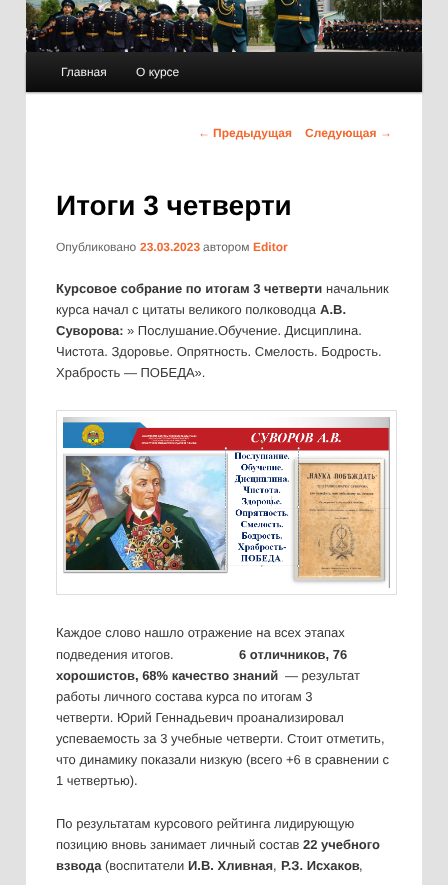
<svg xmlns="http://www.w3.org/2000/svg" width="448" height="885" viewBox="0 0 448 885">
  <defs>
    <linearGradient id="g1" gradientUnits="userSpaceOnUse" x1="224" y1="52" x2="224" y2="92"><stop offset="0" stop-color="#252525"/><stop offset="1" stop-color="#0a0a0a"/></linearGradient>
  </defs>
  <rect width="100%" height="100%" fill="#e2e2e2"/>
  <path d="M26 92h396v793H26z" fill="#fff"/>
  <path d="M26 53h396v40H26z" fill="#00000066" filter="blur(1px)"/>
  <image x="26" y="0" width="396" height="52" href="img/1.png"/>
  <path d="M26 52h396v40H26z" fill="url(#g1)"/>
  <path d="M56.5 410.5h340v184H56.5z" fill="none" stroke="#ddd"/>
  <image x="63" y="417" width="327" height="171" href="img/2.png"/>
  <g font-family="Liberation Sans" font-size="12" fill="#eee">
    <text x="61" y="76">Главная</text>
    <text x="136" y="76">О курсе</text>
  </g>
  <text x="198" y="137" font-family="Liberation Sans" font-size="12" fill="#f3682f">←</text>
  <g font-family="Liberation Sans" font-size="12" font-weight="bold" fill="#f3682f">
    <text x="213" y="137">Предыдущая</text>
    <text x="305" y="137">Следующая</text>
  </g>
  <text x="380" y="137" font-family="Liberation Sans" font-size="12" fill="#f3682f">→</text>
  <text x="56" y="215" font-family="Liberation Sans" font-size="28" font-weight="bold" fill="#000">Итоги 3 четверти</text>
  <text x="56" y="251" font-family="Liberation Sans" font-size="12" fill="#666">Опубликовано</text>
  <text x="140" y="251" font-family="Liberation Sans" font-size="12" font-weight="bold" fill="#f3682f">23.03.2023</text>
  <text x="203" y="251" font-family="Liberation Sans" font-size="12" fill="#666">автором</text>
  <text x="253" y="251" font-family="Liberation Sans" font-size="12" font-weight="bold" fill="#f3682f">Editor</text>
  <text x="56" y="293" font-family="Liberation Sans" font-size="13" font-weight="bold" fill="#373737">Курсовое собрание по итогам 3 четверти</text>
  <g font-family="Liberation Sans" font-size="13" fill="#373737">
    <text x="326" y="293">начальник</text>
    <text x="56" y="314">курса начал с цитаты великого полководца</text>
  </g>
  <g font-family="Liberation Sans" font-size="13" font-weight="bold" fill="#373737">
    <text x="320" y="314">А.В.</text>
    <text x="56" y="335">Суворова:</text>
  </g>
  <g font-family="Liberation Sans" font-size="13" fill="#373737">
    <text x="127" y="335">» Послушание.Обучение. Дисциплина.</text>
    <text x="56" y="356">Чистота. Здоровье. Опрятность. Смелость. Бодрость.</text>
    <text x="56" y="377">Храбрость — ПОБЕДА».</text>
    <text x="56" y="637">Каждое слово нашло отражение на всех этапах</text>
    <text x="56" y="659">подведения итогов.</text>
  </g>
  <g font-family="Liberation Sans" font-size="13" font-weight="bold" fill="#373737">
    <text x="239" y="659">6 отличников, 76</text>
    <text x="56" y="680">хорошистов, 68% качество знаний</text>
  </g>
  <g font-family="Liberation Sans" font-size="13" fill="#373737">
    <text x="285" y="680">— результат</text>
    <text x="56" y="701">работы личного состава курса по итогам 3</text>
    <text x="56" y="722">четверти. Юрий Геннадьевич проанализировал</text>
    <text x="56" y="743">успеваемость за 3 учебные четверти. Стоит отметить,</text>
    <text x="56" y="764">что динамику показали низкую (всего +6 в сравнении с</text>
    <text x="56" y="785">1 четвертью).</text>
    <text x="56" y="828">По результатам курсового рейтинга лидирующую</text>
    <text x="56" y="849">позицию вновь занимает личный состав</text>
  </g>
  <g font-family="Liberation Sans" font-size="13" font-weight="bold" fill="#373737">
    <text x="303" y="849">22 учебного</text>
    <text x="56" y="870">взвода</text>
  </g>
  <text x="105" y="870" font-family="Liberation Sans" font-size="13" fill="#373737">(воспитатели</text>
  <text x="188" y="870" font-family="Liberation Sans" font-size="13" font-weight="bold" fill="#373737">И.В. Хливная</text>
  <text x="273" y="870" font-family="Liberation Sans" font-size="13" fill="#373737">,</text>
  <text x="281" y="870" font-family="Liberation Sans" font-size="13" font-weight="bold" fill="#373737">Р.З. Исхаков</text>
  <text x="359" y="870" font-family="Liberation Sans" font-size="13" fill="#373737">,</text>
</svg>
